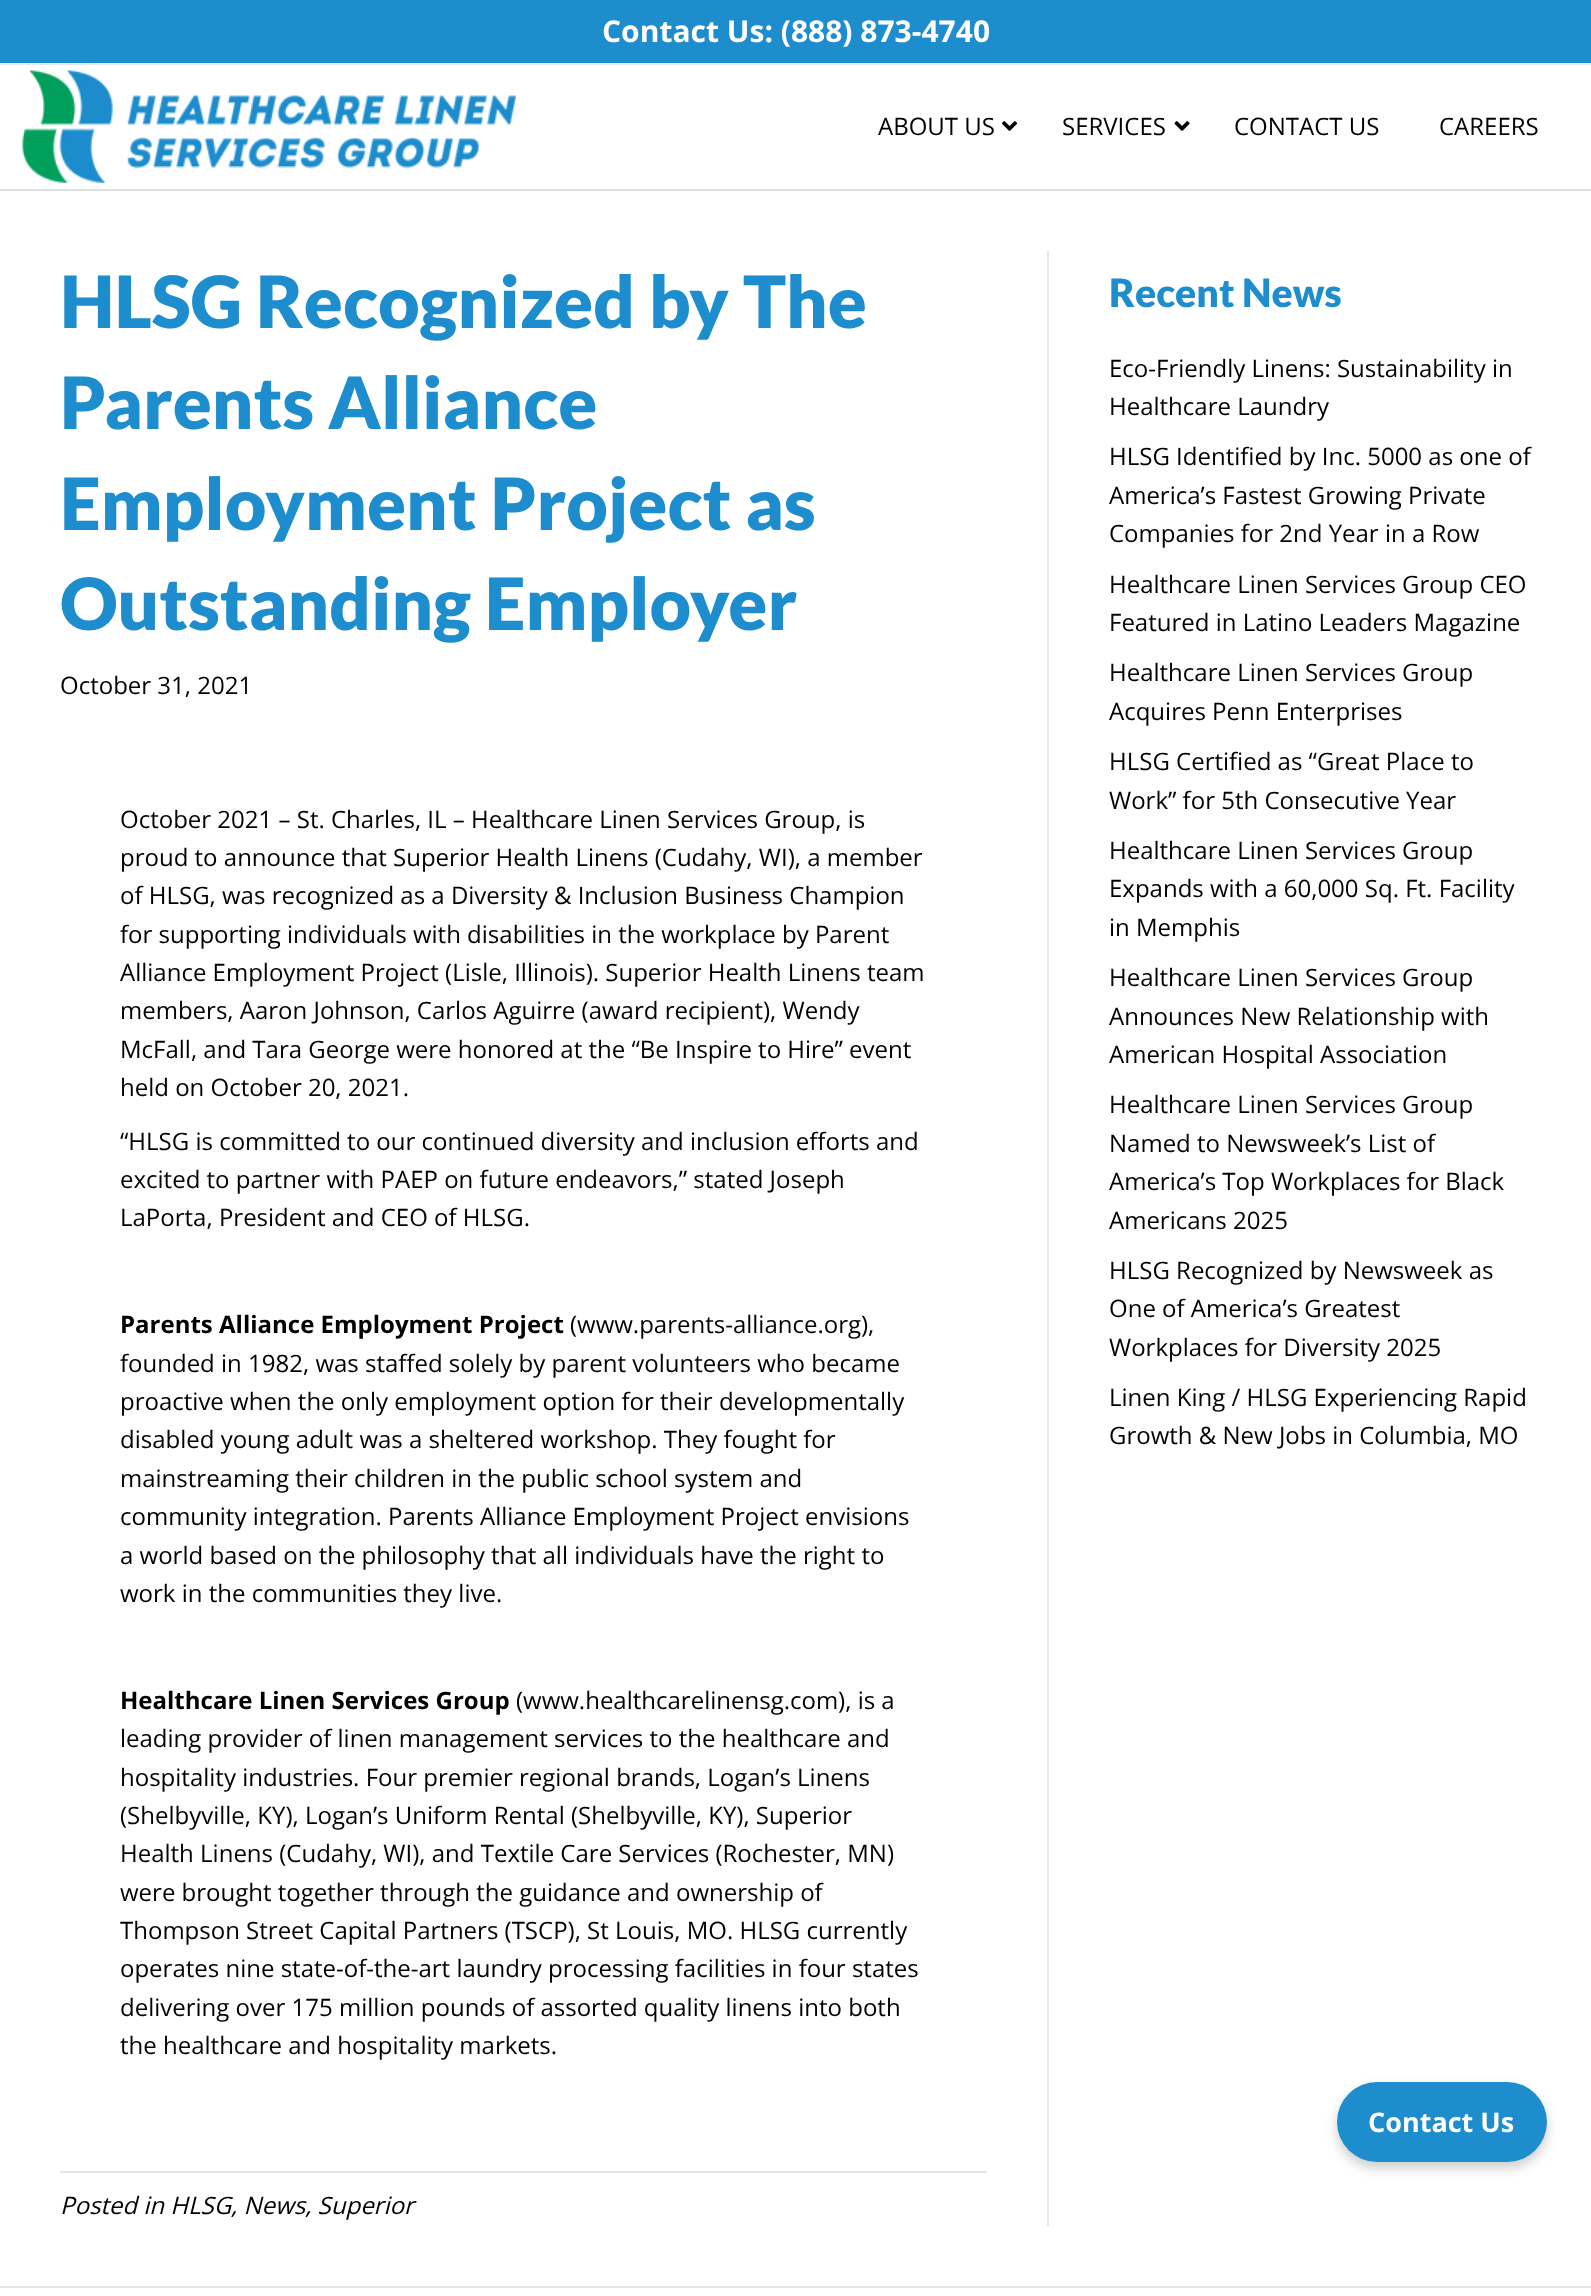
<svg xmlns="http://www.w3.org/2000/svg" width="1591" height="2296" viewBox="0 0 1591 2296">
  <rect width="100%" height="100%" fill="#fff"/>
  <path d="M0 0h1591v63H0z" fill="#1e8dcd"/>
  <path d="M0 63h1591v2H0z" fill="#e6e6e6"/>
  <path d="M0 189h1591v2H0z" fill="#dedede"/>
  <image x="22" y="70" width="494" height="113" href="img/1.png"/>
  <image x="1002" y="121" width="15" height="10" href="img/2.png"/>
  <image x="1174" y="121" width="16" height="10" href="img/3.png"/>
  <path d="M1047 251h2v1975H1047z" fill="#e6e6e6"/>
  <path d="M60 2171h927v2H60z" fill="#e6e6e6"/>
  <path d="M0 2286h1591v2H0z" fill="#e6e6e6"/>
  <rect x="1337" y="2088" width="210" height="80" rx="40" fill="#00000033" filter="blur(6px)"/>
  <rect x="1337" y="2082" width="210" height="80" rx="40" fill="#1e8dcd"/>
  <text x="602" y="42" font-family="Open Sans" font-size="30" font-weight="bold" fill="#fff">Contact Us: (888) 873-4740</text>
  <g font-family="Open Sans" font-size="24" fill="#000">
    <text x="878" y="135">ABOUT US</text>
    <text x="1062" y="135">SERVICES</text>
    <text x="1234" y="135">CONTACT US</text>
    <text x="1439" y="135">CAREERS</text>
  </g>
  <g font-family="Lato" font-size="72" font-weight="900" fill="#1e8dcd">
    <text x="60" y="328">HLSG Recognized by The</text>
    <text x="60" y="429">Parents Alliance</text>
    <text x="60" y="530">Employment Project as</text>
    <text x="60" y="630">Outstanding Employer</text>
  </g>
  <g font-family="Open Sans" font-size="24" fill="#000">
    <text x="60" y="694">October 31, 2021</text>
    <text x="120" y="828">October 2021 – St. Charles, IL – Healthcare Linen Services Group, is</text>
    <text x="120" y="866">proud to announce that Superior Health Linens (Cudahy, WI), a member</text>
    <text x="120" y="904">of HLSG, was recognized as a Diversity &amp; Inclusion Business Champion</text>
    <text x="120" y="943">for supporting individuals with disabilities in the workplace by Parent</text>
    <text x="120" y="981">Alliance Employment Project (Lisle, Illinois). Superior Health Linens team</text>
    <text x="120" y="1019">members, Aaron Johnson, Carlos Aguirre (award recipient), Wendy</text>
    <text x="120" y="1058">McFall, and Tara George were honored at the “Be Inspire to Hire” event</text>
    <text x="120" y="1096">held on October 20, 2021.</text>
    <text x="120" y="1150">“HLSG is committed to our continued diversity and inclusion efforts and</text>
    <text x="120" y="1188">excited to partner with PAEP on future endeavors,” stated Joseph</text>
    <text x="120" y="1226">LaPorta, President and CEO of HLSG.</text>
  </g>
  <text x="120" y="1333" font-family="Open Sans" font-size="24" font-weight="bold" fill="#000">Parents Alliance Employment Project</text>
  <g font-family="Open Sans" font-size="24" fill="#000">
    <text x="570" y="1333">(www.parents-alliance.org),</text>
    <text x="120" y="1372">founded in 1982, was staffed solely by parent volunteers who became</text>
    <text x="120" y="1410">proactive when the only employment option for their developmentally</text>
    <text x="120" y="1448">disabled young adult was a sheltered workshop. They fought for</text>
    <text x="120" y="1487">mainstreaming their children in the public school system and</text>
    <text x="120" y="1525">community integration. Parents Alliance Employment Project envisions</text>
    <text x="120" y="1564">a world based on the philosophy that all individuals have the right to</text>
    <text x="120" y="1602">work in the communities they live.</text>
  </g>
  <text x="120" y="1709" font-family="Open Sans" font-size="24" font-weight="bold" fill="#000">Healthcare Linen Services Group</text>
  <g font-family="Open Sans" font-size="24" fill="#000">
    <text x="516" y="1709">(www.healthcarelinensg.com), is a</text>
    <text x="120" y="1747">leading provider of linen management services to the healthcare and</text>
    <text x="120" y="1786">hospitality industries. Four premier regional brands, Logan’s Linens</text>
    <text x="120" y="1824">(Shelbyville, KY), Logan’s Uniform Rental (Shelbyville, KY), Superior</text>
    <text x="120" y="1862">Health Linens (Cudahy, WI), and Textile Care Services (Rochester, MN)</text>
    <text x="120" y="1901">were brought together through the guidance and ownership of</text>
    <text x="120" y="1939">Thompson Street Capital Partners (TSCP), St Louis, MO. HLSG currently</text>
    <text x="120" y="1977">operates nine state-of-the-art laundry processing facilities in four states</text>
    <text x="120" y="2016">delivering over 175 million pounds of assorted quality linens into both</text>
    <text x="120" y="2054">the healthcare and hospitality markets.</text>
  </g>
  <text x="60" y="2214" font-family="Open Sans" font-size="24" font-style="italic" fill="#000">Posted in HLSG, News, Superior</text>
  <text x="1109" y="307" font-family="Lato" font-size="39" font-weight="900" fill="#1e8dcd">Recent News</text>
  <g font-family="Open Sans" font-size="24" fill="#000">
    <text x="1109" y="377">Eco-Friendly Linens: Sustainability in</text>
    <text x="1109" y="415">Healthcare Laundry</text>
    <text x="1109" y="465">HLSG Identified by Inc. 5000 as one of</text>
    <text x="1109" y="504">America’s Fastest Growing Private</text>
    <text x="1109" y="542">Companies for 2nd Year in a Row</text>
    <text x="1109" y="593">Healthcare Linen Services Group CEO</text>
    <text x="1109" y="631">Featured in Latino Leaders Magazine</text>
    <text x="1109" y="681">Healthcare Linen Services Group</text>
    <text x="1109" y="720">Acquires Penn Enterprises</text>
    <text x="1109" y="770">HLSG Certified as “Great Place to</text>
    <text x="1109" y="809">Work” for 5th Consecutive Year</text>
    <text x="1109" y="859">Healthcare Linen Services Group</text>
    <text x="1109" y="897">Expands with a 60,000 Sq. Ft. Facility</text>
    <text x="1109" y="936">in Memphis</text>
    <text x="1109" y="986">Healthcare Linen Services Group</text>
    <text x="1109" y="1025">Announces New Relationship with</text>
    <text x="1109" y="1063">American Hospital Association</text>
    <text x="1109" y="1113">Healthcare Linen Services Group</text>
    <text x="1109" y="1152">Named to Newsweek’s List of</text>
    <text x="1109" y="1190">America’s Top Workplaces for Black</text>
    <text x="1109" y="1229">Americans 2025</text>
    <text x="1109" y="1279">HLSG Recognized by Newsweek as</text>
    <text x="1109" y="1317">One of America’s Greatest</text>
    <text x="1109" y="1356">Workplaces for Diversity 2025</text>
    <text x="1109" y="1406">Linen King / HLSG Experiencing Rapid</text>
    <text x="1109" y="1444">Growth &amp; New Jobs in Columbia, MO</text>
  </g>
  <text x="1368" y="2132" font-family="Open Sans" font-size="27" font-weight="bold" fill="#fff">Contact Us</text>
</svg>
